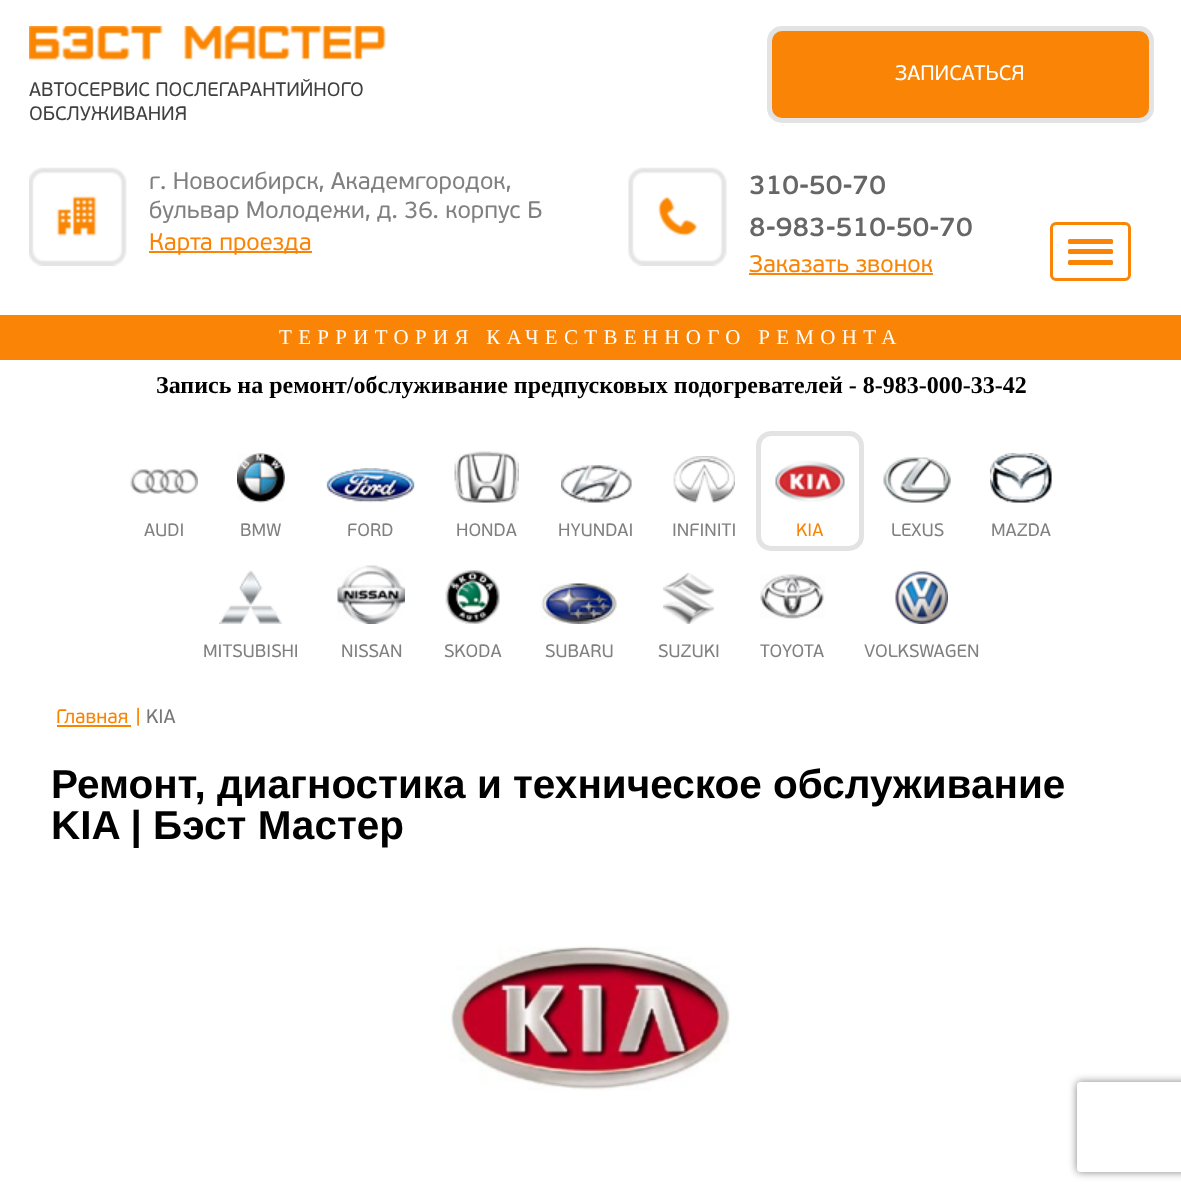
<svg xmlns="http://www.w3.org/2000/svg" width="1181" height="1192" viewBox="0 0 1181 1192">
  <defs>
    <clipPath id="clip1"><path d="M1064 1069H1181V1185H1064ZM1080 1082H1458C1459.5 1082 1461 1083.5 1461 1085V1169C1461 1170.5 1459.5 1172 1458 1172H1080C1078.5 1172 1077 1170.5 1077 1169V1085C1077 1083.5 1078.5 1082 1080 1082Z" clip-rule="evenodd"/></clipPath>
  </defs>
  <rect width="100%" height="100%" fill="#fff"/>
  <rect x="769.5" y="28.5" width="382" height="92" rx="12.5" fill="#fa8406" stroke="#e3e3e3" stroke-width="5"/>
  <image x="29" y="26" width="357" height="35" href="img/1.png"/>
  <image x="29" y="167" width="98" height="99" href="img/2.png"/>
  <path d="M149 251h163v2H149z" fill="#fa8406"/>
  <image x="628" y="167" width="99" height="99" href="img/3.png"/>
  <path d="M749 273h184v2H749z" fill="#fa8406"/>
  <rect x="1051.5" y="223.5" width="78" height="56" rx="4.5" fill="none" stroke="#fa8406" stroke-width="3"/>
  <rect x="1068" y="239" width="45" height="5" rx="1.5" fill="#fa8406"/>
  <rect x="1068" y="249" width="45" height="5" rx="1.5" fill="#fa8406"/>
  <rect x="1068" y="260" width="45" height="5" rx="1.5" fill="#fa8406"/>
  <path d="M0 315h1181v45H0z" fill="#fa8406"/>
  <image x="130" y="469" width="68" height="25" href="img/4.png"/>
  <image x="237" y="453" width="48" height="50" href="img/5.png"/>
  <image x="326" y="468" width="89" height="35" href="img/6.png"/>
  <image x="454" y="451" width="65" height="52" href="img/7.png"/>
  <image x="561" y="465" width="71" height="38" href="img/8.png"/>
  <image x="673" y="456" width="62" height="47" href="img/9.png"/>
  <rect x="758.5" y="433.5" width="103" height="115" rx="12.5" fill="none" stroke="#e3e3e3" stroke-width="5"/>
  <image x="775" y="460" width="70" height="42" href="img/10.png"/>
  <image x="883" y="457" width="68" height="46" href="img/11.png"/>
  <image x="990" y="453" width="62" height="50" href="img/12.png"/>
  <image x="219" y="570" width="63" height="54" href="img/13.png"/>
  <image x="337" y="565" width="68" height="59" href="img/14.png"/>
  <image x="445" y="570" width="55" height="54" href="img/15.png"/>
  <image x="540" y="583" width="77" height="41" href="img/16.png"/>
  <image x="663" y="573" width="51" height="51" href="img/17.png"/>
  <image x="760" y="574" width="65" height="45" href="img/18.png"/>
  <image x="895" y="571" width="53" height="53" href="img/19.png"/>
  <path d="M57 725h74v2H57z" fill="#f98400"/>
  <image x="441" y="946" width="289" height="145" href="img/20.png"/>
  <g clip-path="url(#clip1)">
    <rect x="1077" y="1082" width="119" height="90" rx="3" fill="#808080" filter="blur(4px)"/>
  </g>
  <text x="895" y="80" font-family="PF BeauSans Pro" font-size="21" fill="#fff">ЗАПИСАТЬСЯ</text>
  <g font-family="PF BeauSans Pro" font-size="19.5" fill="#404040">
    <text x="29" y="96">АВТОСЕРВИС ПОСЛЕГАРАНТИЙНОГО</text>
    <text x="29" y="120">ОБСЛУЖИВАНИЯ</text>
  </g>
  <g font-family="PF BeauSans Pro" font-size="24" fill="#808080">
    <text x="149" y="189">г. Новосибирск, Академгородок,</text>
    <text x="149" y="218">бульвар Молодежи, д. 36. корпус Б</text>
  </g>
  <text x="149" y="250" font-family="PF BeauSans Pro" font-size="24" fill="#fa8406">Карта проезда</text>
  <g font-family="PF BeauSans Pro" font-size="27" font-weight="600" fill="#666">
    <text x="749" y="194">310-50-70</text>
    <text x="749" y="236">8-983-510-50-70</text>
  </g>
  <text x="749" y="272" font-family="PF BeauSans Pro" font-size="24" fill="#fa8406">Заказать звонок</text>
  <text x="279" y="344" font-family="Liberation Serif" font-size="21" letter-spacing="6.3" fill="#fff">ТЕРРИТОРИЯ КАЧЕСТВЕННОГО РЕМОНТА</text>
  <text x="156" y="393" font-family="Liberation Serif" font-size="24" font-weight="bold" fill="#000">Запись на ремонт/обслуживание предпусковых подогревателей - 8-983-000-33-42</text>
  <g font-family="PF BeauSans Pro" font-size="18" fill="#808080">
    <text x="144" y="536">AUDI</text>
    <text x="240" y="536">BMW</text>
    <text x="347" y="536">FORD</text>
    <text x="456" y="536">HONDA</text>
    <text x="558" y="536">HYUNDAI</text>
    <text x="672" y="536">INFINITI</text>
  </g>
  <text x="796" y="536" font-family="PF BeauSans Pro" font-size="18" fill="#fa8406">KIA</text>
  <g font-family="PF BeauSans Pro" font-size="18" fill="#808080">
    <text x="891" y="536">LEXUS</text>
    <text x="991" y="536">MAZDA</text>
    <text x="203" y="657">MITSUBISHI</text>
    <text x="341" y="657">NISSAN</text>
    <text x="444" y="657">SKODA</text>
    <text x="545" y="657">SUBARU</text>
    <text x="658" y="657">SUZUKI</text>
    <text x="760" y="657">TOYOTA</text>
    <text x="864" y="657">VOLKSWAGEN</text>
  </g>
  <g font-family="PF BeauSans Pro" font-size="19.5" fill="#f98400">
    <text x="56" y="723">Главная</text>
    <text x="136" y="723">|</text>
  </g>
  <text x="146" y="723" font-family="PF BeauSans Pro" font-size="19.5" fill="#777">KIA</text>
  <g font-family="Liberation Sans" font-size="40.5" font-weight="bold" fill="#000">
    <text x="51" y="798">Ремонт, диагностика и техническое обслуживание</text>
    <text x="51" y="839">KIA | Бэст Мастер</text>
  </g>
</svg>
